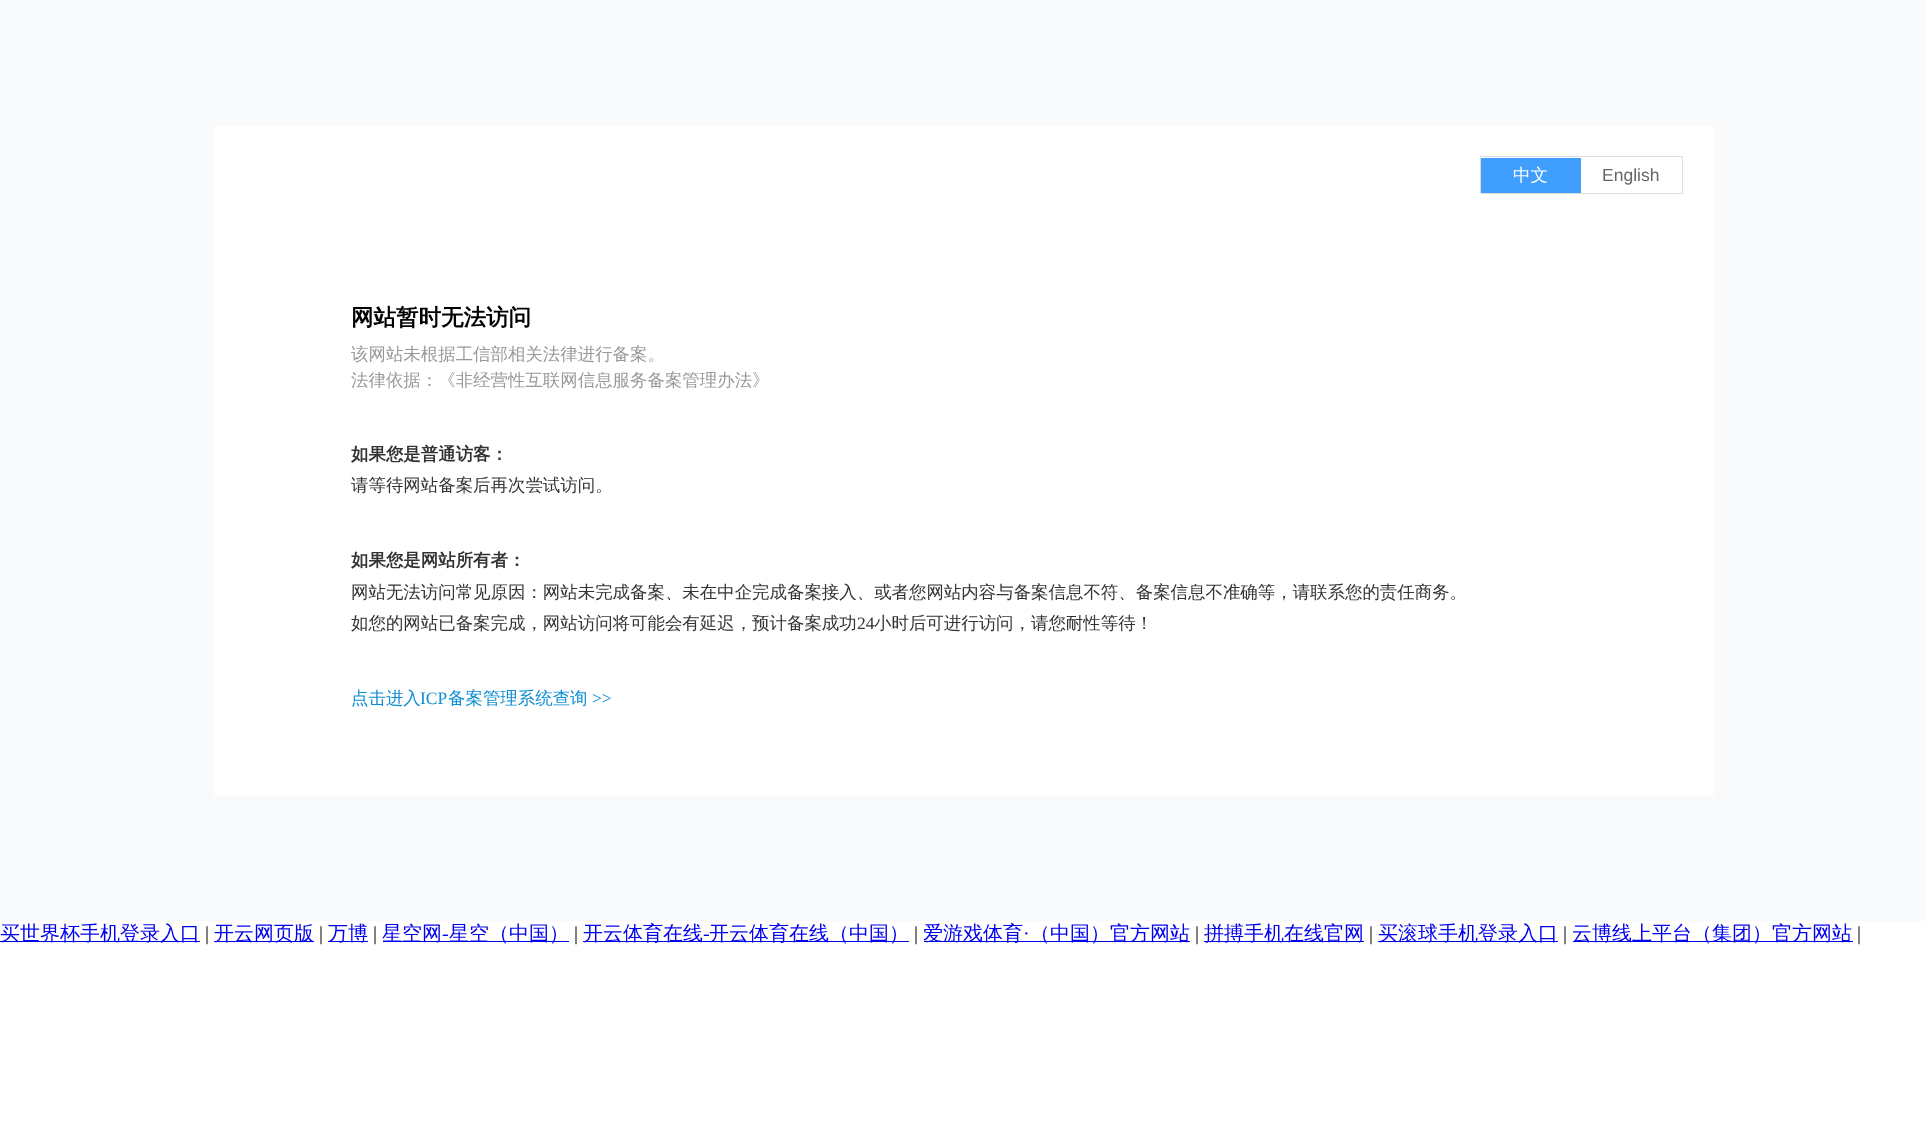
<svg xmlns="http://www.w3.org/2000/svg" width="1926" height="1142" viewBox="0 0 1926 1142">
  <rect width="100%" height="100%" fill="#fff"/>
  <path d="M0 0h1926v921H0z" fill="#f8fafb"/>
  <path d="M214 125h1500v671H214z" fill="#fff"/>
  <path d="M1480.5 156.5h202v37H1480.5z" fill="none" stroke="#ddd"/>
  <path d="M1481 158h100v35H1481z" fill="#409eff"/>
  <path d="M0 941h200v1H0z" fill="#00e"/>
  <path d="M214 941h100v1H214z" fill="#00e"/>
  <path d="M328 941h40v1H328z" fill="#00e"/>
  <path d="M924 941h266v1H924z" fill="#00e"/>
  <path d="M1204 941h160v1H1204z" fill="#00e"/>
  <path d="M1378 941h180v1H1378z" fill="#00e"/>
  <path d="M1573 941h280v1H1573z" fill="#00e"/>
  <path d="M383 941h186v1H383z" fill="#00e"/>
  <path d="M583 941h326v1H583z" fill="#00e"/>
  <text x="1513" y="181" font-family="WenQuanYi Zen Hei" font-size="17.5" font-weight="500" fill="#fff">中文</text>
  <text x="1602" y="181" font-family="Liberation Sans" font-size="17.5" fill="#666">English</text>
  <text x="351" y="325" font-family="WenQuanYi Zen Hei" font-size="22.5" font-weight="bold" fill="#000">网站暂时无法访问</text>
  <g font-family="WenQuanYi Zen Hei" font-size="17.45" font-weight="500" fill="#999">
    <text x="351" y="360">该网站未根据工信部相关法律进行备案。</text>
    <text x="351" y="386">法律依据：《非经营性互联网信息服务备案管理办法》</text>
  </g>
  <text x="351" y="460" font-family="WenQuanYi Zen Hei" font-size="17.45" font-weight="bold" fill="#333">如果您是普通访客：</text>
  <text x="351" y="491" font-family="WenQuanYi Zen Hei" font-size="17.45" font-weight="500" fill="#333">请等待网站备案后再次尝试访问。</text>
  <text x="351" y="566" font-family="WenQuanYi Zen Hei" font-size="17.45" font-weight="bold" fill="#333">如果您是网站所有者：</text>
  <g font-family="WenQuanYi Zen Hei" font-size="17.45" font-weight="500" fill="#333">
    <text x="351" y="598">网站无法访问常见原因：网站未完成备案、未在中企完成备案接入、或者您网站内容与备案信息不符、备案信息不准确等，请联系您的责任商务。</text>
    <text x="351" y="629">如您的网站已备案完成，网站访问将可能会有延迟，预计备案成功</text>
  </g>
  <text x="857" y="629" font-family="Liberation Serif" font-size="17.45" fill="#333">24</text>
  <text x="874" y="629" font-family="WenQuanYi Zen Hei" font-size="17.45" font-weight="500" fill="#333">小时后可进行访问，请您耐性等待！</text>
  <text x="351" y="704" font-family="WenQuanYi Zen Hei" font-size="17.45" font-weight="500" fill="#0d8dd3">点击进入</text>
  <text x="420" y="704" font-family="Liberation Serif" font-size="17.45" fill="#0d8dd3">ICP</text>
  <text x="448" y="704" font-family="WenQuanYi Zen Hei" font-size="17.45" font-weight="500" fill="#0d8dd3">备案管理系统查询</text>
  <text x="592" y="704" font-family="Liberation Serif" font-size="17.45" fill="#0d8dd3">&gt;&gt;</text>
  <text x="0" y="940" font-family="WenQuanYi Zen Hei" font-size="20" font-weight="500" fill="#00e">买世界杯手机登录入口</text>
  <text x="205" y="940" font-family="Liberation Serif" font-size="20" fill="#000">|</text>
  <text x="214" y="940" font-family="WenQuanYi Zen Hei" font-size="20" font-weight="500" fill="#00e">开云网页版</text>
  <text x="319" y="940" font-family="Liberation Serif" font-size="20" fill="#000">|</text>
  <text x="328" y="940" font-family="WenQuanYi Zen Hei" font-size="20" font-weight="500" fill="#00e">万博</text>
  <text x="373" y="940" font-family="Liberation Serif" font-size="20" fill="#000">|</text>
  <g font-family="WenQuanYi Zen Hei" font-size="20" font-weight="500" fill="#00e">
    <text x="382" y="940">星空网</text>
    <text x="449" y="940">星空（中国）</text>
  </g>
  <text x="574" y="940" font-family="Liberation Serif" font-size="20" fill="#000">|</text>
  <g font-family="WenQuanYi Zen Hei" font-size="20" font-weight="500" fill="#00e">
    <text x="583" y="940">开云体育在线</text>
    <text x="709" y="940">开云体育在线（中国）</text>
  </g>
  <text x="914" y="940" font-family="Liberation Serif" font-size="20" fill="#000">|</text>
  <text x="923" y="940" font-family="WenQuanYi Zen Hei" font-size="20" font-weight="500" fill="#00e">爱游戏体育</text>
  <text x="1023" y="940" font-family="Liberation Serif" font-size="20" fill="#00e">·</text>
  <text x="1030" y="940" font-family="WenQuanYi Zen Hei" font-size="20" font-weight="500" fill="#00e">（中国）官方网站</text>
  <text x="1195" y="940" font-family="Liberation Serif" font-size="20" fill="#000">|</text>
  <text x="1204" y="940" font-family="WenQuanYi Zen Hei" font-size="20" font-weight="500" fill="#00e">拼搏手机在线官网</text>
  <text x="1369" y="940" font-family="Liberation Serif" font-size="20" fill="#000">|</text>
  <text x="1378" y="940" font-family="WenQuanYi Zen Hei" font-size="20" font-weight="500" fill="#00e">买滚球手机登录入口</text>
  <text x="1563" y="940" font-family="Liberation Serif" font-size="20" fill="#000">|</text>
  <text x="1572" y="940" font-family="WenQuanYi Zen Hei" font-size="20" font-weight="500" fill="#00e">云博线上平台（集团）官方网站</text>
  <text x="1857" y="940" font-family="Liberation Serif" font-size="20" fill="#000">|</text>
  <g font-family="Liberation Serif" font-size="20" fill="#00e">
    <text x="442" y="940">-</text>
    <text x="703" y="940">-</text>
  </g>
</svg>
